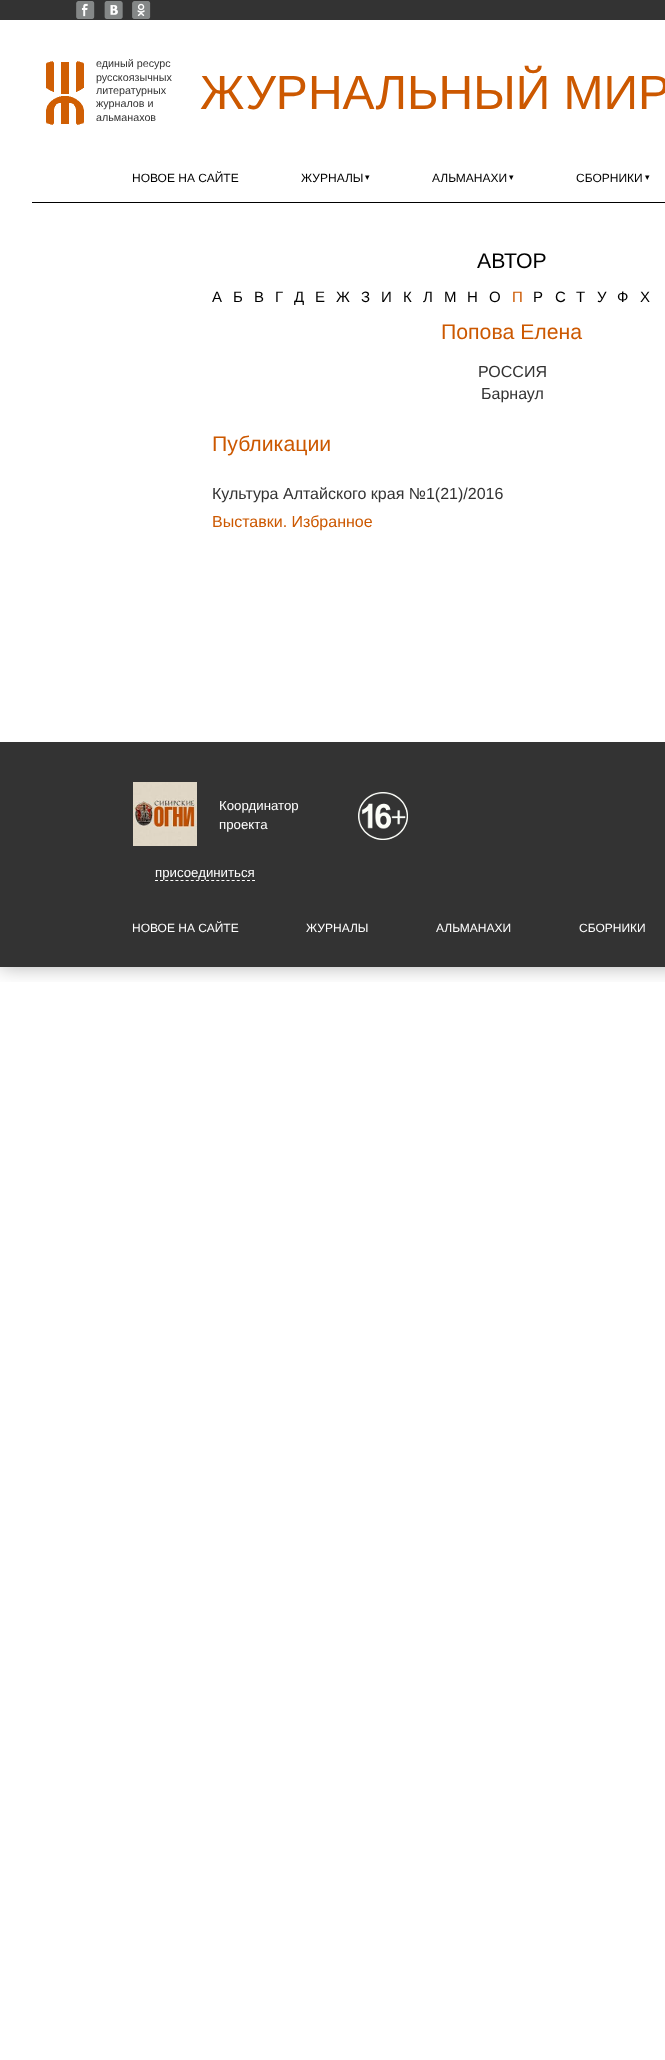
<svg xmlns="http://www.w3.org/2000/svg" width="665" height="2060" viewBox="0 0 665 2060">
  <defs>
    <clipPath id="clip1"><path d="M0 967h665v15H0z"/></clipPath>
  </defs>
  <rect width="100%" height="100%" fill="#fff"/>
  <g clip-path="url(#clip1)">
    <path d="M0 20h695v947H0z" fill="#0000004d" filter="blur(10px)"/>
  </g>
  <path d="M0 0h665v20H0z" fill="#333"/>
  <image x="76" y="1" width="19" height="18" href="img/1.png"/>
  <image x="104" y="1" width="19" height="18" href="img/2.png"/>
  <image x="132" y="1" width="19" height="18" href="img/3.png"/>
  <image x="46" y="61" width="38" height="64" href="img/4.png"/>
  <path d="M32 202h633v1H32z" fill="#000"/>
  <path d="M0 742h665v225H0z" fill="#333"/>
  <image x="133" y="782" width="64" height="64" href="img/5.png"/>
  <image x="358" y="792" width="50" height="48" href="img/6.png"/>
  <path d="M155 880.5H255" fill="none" stroke="#fff" stroke-dasharray="3 2.11"/>
  <g font-family="Liberation Sans" font-size="10.75" fill="#333">
    <text x="96" y="67">единый ресурс</text>
    <text x="96" y="81">русскоязычных</text>
    <text x="96" y="94">литературных</text>
    <text x="96" y="107">журналов и</text>
    <text x="96" y="121">альманахов</text>
  </g>
  <text x="200" y="109" font-family="Liberation Sans" font-size="48" fill="#cc5800">ЖУРНАЛЬНЫЙ МИР</text>
  <g font-family="Liberation Sans" font-size="12" fill="#000">
    <text x="132" y="182">НОВОЕ НА САЙТЕ</text>
    <text x="301" y="182">ЖУРНАЛЫ</text>
  </g>
  <text x="365" y="180" font-family="DejaVu Sans" font-size="9" fill="#000">▾</text>
  <text x="432" y="182" font-family="Liberation Sans" font-size="12" fill="#000">АЛЬМАНАХИ</text>
  <text x="509" y="180" font-family="DejaVu Sans" font-size="9" fill="#000">▾</text>
  <text x="576" y="182" font-family="Liberation Sans" font-size="12" fill="#000">СБОРНИКИ</text>
  <text x="645" y="180" font-family="DejaVu Sans" font-size="9" fill="#000">▾</text>
  <text x="477" y="268" font-family="Liberation Sans" font-size="21.25" fill="#000">АВТОР</text>
  <g font-family="Liberation Sans" font-size="15" fill="#000">
    <text x="212" y="302">А</text>
    <text x="233" y="302">Б</text>
    <text x="254" y="302">В</text>
    <text x="275" y="302">Г</text>
    <text x="294" y="302">Д</text>
    <text x="315" y="302">Е</text>
    <text x="336" y="302">Ж</text>
    <text x="361" y="302">З</text>
    <text x="381" y="302">И</text>
    <text x="403" y="302">К</text>
    <text x="423" y="302">Л</text>
    <text x="444" y="302">М</text>
    <text x="467" y="302">Н</text>
    <text x="489" y="302">О</text>
  </g>
  <text x="512" y="302" font-family="Liberation Sans" font-size="15" fill="#cc5800">П</text>
  <g font-family="Liberation Sans" font-size="15" fill="#000">
    <text x="533" y="302">Р</text>
    <text x="555" y="302">С</text>
    <text x="576" y="302">Т</text>
    <text x="597" y="302">У</text>
    <text x="617" y="302">Ф</text>
    <text x="640" y="302">Х</text>
  </g>
  <text x="441" y="339" font-family="Liberation Sans" font-size="21.25" fill="#cc5800">Попова Елена</text>
  <g font-family="Liberation Sans" font-size="16" fill="#333">
    <text x="478" y="377">РОССИЯ</text>
    <text x="481" y="399">Барнаул</text>
  </g>
  <text x="212" y="451" font-family="Liberation Sans" font-size="21.25" fill="#cc5800">Публикации</text>
  <text x="212" y="499" font-family="Liberation Sans" font-size="16" fill="#333">Культура Алтайского края №1(21)/2016</text>
  <text x="212" y="527" font-family="Liberation Sans" font-size="16" fill="#cc5800">Выставки. Избранное</text>
  <g font-family="Liberation Sans" font-size="13.25" fill="#fff">
    <text x="219" y="810">Координатор</text>
    <text x="219" y="829">проекта</text>
    <text x="155" y="877">присоединиться</text>
  </g>
  <g font-family="Liberation Sans" font-size="12" fill="#fff">
    <text x="132" y="932">НОВОЕ НА САЙТЕ</text>
    <text x="306" y="932">ЖУРНАЛЫ</text>
    <text x="436" y="932">АЛЬМАНАХИ</text>
    <text x="579" y="932">СБОРНИКИ</text>
  </g>
</svg>
